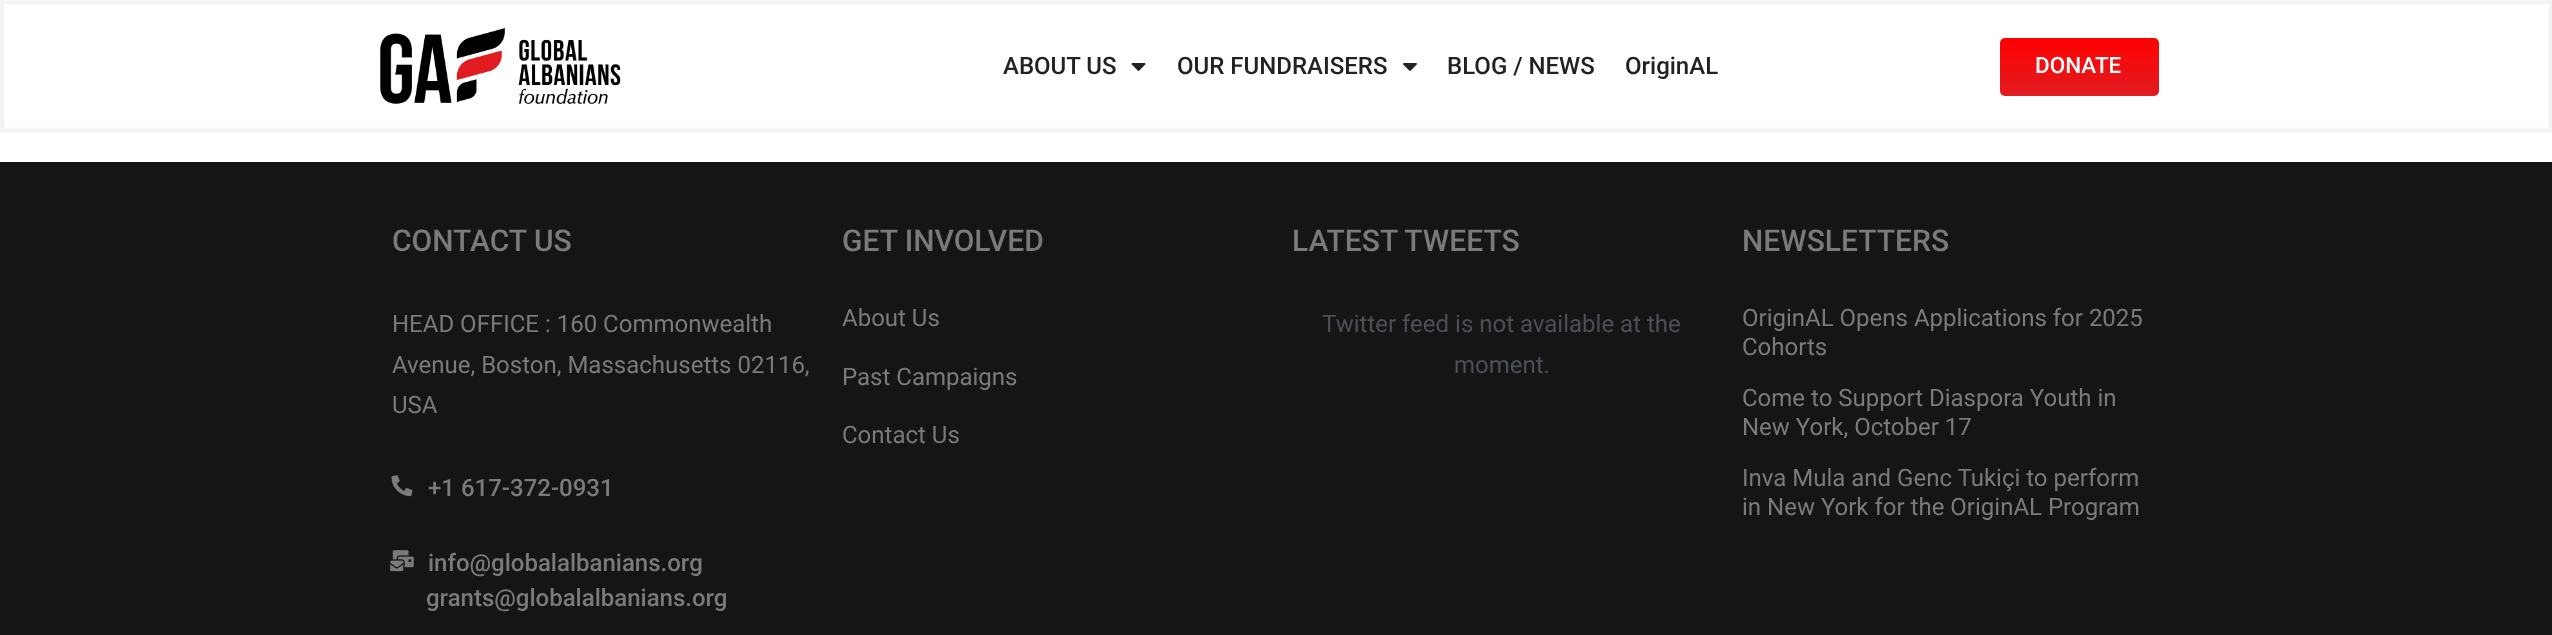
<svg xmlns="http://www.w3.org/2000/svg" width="2552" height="635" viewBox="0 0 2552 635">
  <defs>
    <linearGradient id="g1" gradientUnits="userSpaceOnUse" x1="2079" y1="37" x2="2079" y2="96"><stop offset="0" stop-color="#f00"/><stop offset="1" stop-color="#e11c21"/></linearGradient>
  </defs>
  <rect width="100%" height="100%" fill="#fff"/>
  <path d="M2 2H2551V130H2Z" fill="none" stroke="#f3f3f3" stroke-width="4.5"/>
  <image x="380" y="27" width="241" height="78" href="img/1.png"/>
  <image x="1131" y="63" width="15" height="8" href="img/2.png"/>
  <image x="1403" y="63" width="14" height="8" href="img/3.png"/>
  <rect x="2000" y="38" width="159" height="58" rx="5" fill="url(#g1)"/>
  <path d="M0 162h2552v473H0z" fill="#151515"/>
  <image x="391" y="475" width="22" height="22" href="img/4.png"/>
  <image x="390" y="550" width="24" height="22" href="img/5.png"/>
  <g font-family="Roboto" font-size="24" font-weight="500" fill="#222">
    <text x="1003" y="74">ABOUT US</text>
    <text x="1177" y="74">OUR FUNDRAISERS</text>
    <text x="1447" y="74">BLOG / NEWS</text>
    <text x="1625" y="74">OriginAL</text>
  </g>
  <text x="2035" y="73" font-family="Roboto" font-size="22.5" font-weight="500" fill="#fff">DONATE</text>
  <text x="392" y="251" font-family="Roboto" font-size="30" font-weight="500" fill="#7a7a7a">CONTACT US</text>
  <g font-family="Roboto" font-size="24" fill="#7a7a7a">
    <text x="392" y="332">HEAD OFFICE : 160 Commonwealth</text>
    <text x="392" y="373">Avenue, Boston, Massachusetts 02116,</text>
    <text x="392" y="413">USA</text>
  </g>
  <g font-family="Roboto" font-size="24" font-weight="500" fill="#7a7a7a">
    <text x="428" y="496">+1 617-372-0931</text>
    <text x="428" y="571">info@globalalbanians.org</text>
    <text x="426" y="606">grants@globalalbanians.org</text>
  </g>
  <text x="842" y="251" font-family="Roboto" font-size="30" font-weight="500" fill="#7a7a7a">GET INVOLVED</text>
  <g font-family="Roboto" font-size="24" fill="#7a7a7a">
    <text x="842" y="326">About Us</text>
    <text x="842" y="385">Past Campaigns</text>
    <text x="842" y="443">Contact Us</text>
  </g>
  <text x="1292" y="251" font-family="Roboto" font-size="30" font-weight="500" fill="#7a7a7a">LATEST TWEETS</text>
  <g font-family="Roboto" font-size="24" fill="#4b4f58">
    <text x="1322" y="332">Twitter feed is not available at the</text>
    <text x="1454" y="373">moment.</text>
  </g>
  <text x="1742" y="251" font-family="Roboto" font-size="30" font-weight="500" fill="#7a7a7a">NEWSLETTERS</text>
  <g font-family="Roboto" font-size="24" fill="#7a7a7a">
    <text x="1742" y="326">OriginAL Opens Applications for 2025</text>
    <text x="1742" y="355">Cohorts</text>
    <text x="1742" y="406">Come to Support Diaspora Youth in</text>
    <text x="1742" y="435">New York, October 17</text>
    <text x="1742" y="486">Inva Mula and Genc Tukiçi to perform</text>
    <text x="1742" y="515">in New York for the OriginAL Program</text>
  </g>
</svg>
